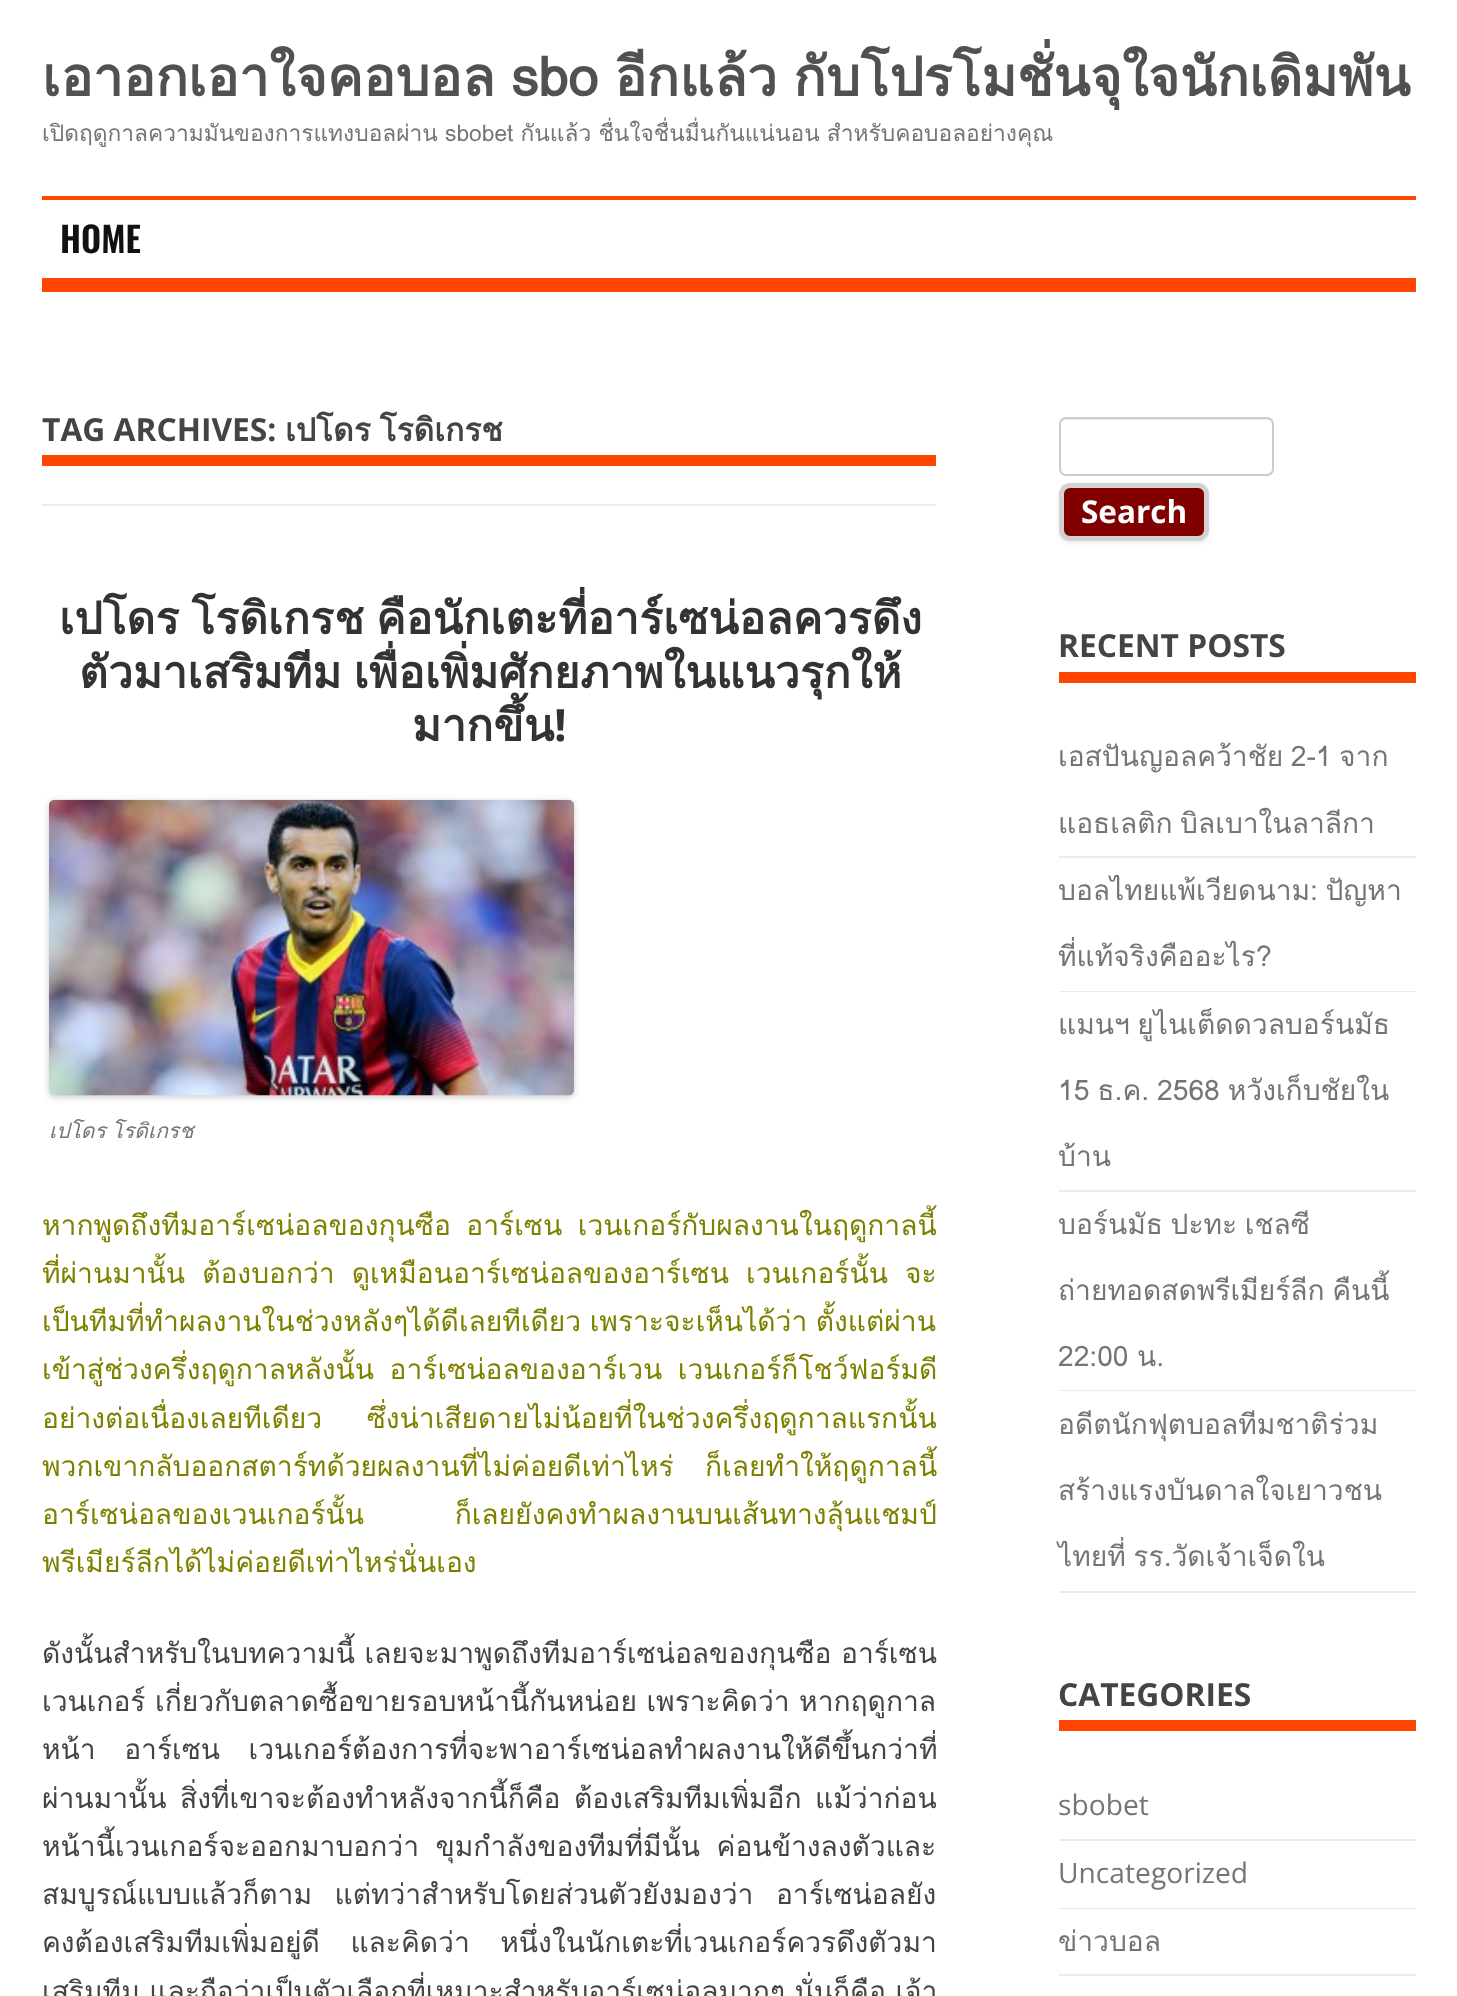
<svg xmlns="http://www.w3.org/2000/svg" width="1457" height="1996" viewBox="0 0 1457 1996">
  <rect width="100%" height="100%" fill="#fff"/>
  <path d="M42 196h1374v4H42z" fill="#ff4500"/>
  <path d="M42 278h1374v14H42z" fill="#ff4500"/>
  <path d="M42 504h894v2H42z" fill="#ededed"/>
  <path d="M42 455h894v11H42z" fill="#ff4500"/>
  <rect x="49" y="802" width="525" height="295" rx="5" fill="#00000033" filter="blur(3.5px)"/>
  <image x="49" y="799" width="525" height="297" href="img/1.png"/>
  <path d="M1066 420H1267C1270 420 1272 422 1272 425V423C1272 420 1270 418 1267 418H1066C1064 418 1061 420 1061 422C1062 421 1064 420 1066 420Z" fill="#ececec"/>
  <rect x="1060" y="418" width="213" height="57" rx="6" fill="none" stroke="#ccc" stroke-width="2"/>
  <rect x="1059" y="485" width="150" height="58" rx="11" fill="#4040401a" filter="blur(2px)"/>
  <rect x="1061.5" y="485.5" width="145" height="53" rx="8.5" fill="#800000" stroke="#d2d2d2" stroke-width="5"/>
  <path d="M1059 672h357v11H1059z" fill="#ff4500"/>
  <path d="M1059 856h357v2H1059z" fill="#ebebeb"/>
  <path d="M1059 991h357v1H1059z" fill="#ebebeb"/>
  <path d="M1059 1190h357v2H1059z" fill="#ebebeb"/>
  <path d="M1059 1390h357v1H1059z" fill="#ebebeb"/>
  <path d="M1059 1591h357v2H1059z" fill="#ebebeb"/>
  <path d="M1059 1720h357v11H1059z" fill="#ff4500"/>
  <path d="M1059 1839h357v2H1059z" fill="#ebebeb"/>
  <path d="M1059 1908h357v1H1059z" fill="#ebebeb"/>
  <path d="M1059 1974h357v2H1059z" fill="#ebebeb"/>
  <text x="42" y="96" word-spacing="-2" font-family="Loma" font-size="53.9" font-weight="bold" fill="#515151">เอาอกเอาใจคอบอล sbo อีกแล้ว กับโปรโมชั่นจุใจนักเดิมพัน</text>
  <text x="42" y="141" word-spacing="-0.5" font-family="Loma" font-size="22.75" fill="#757575">เปิดฤดูกาลความมันของการแทงบอลผ่าน sbobet กันแล้ว ชื่นใจชื่นมื่นกันแน่นอน สำหรับคอบอลอย่างคุณ</text>
  <text x="60" y="253" font-family="Oswald" font-size="35" font-weight="600" fill="#111">HOME</text>
  <text x="42" y="441" font-family="Open Sans" font-size="31.75" font-weight="bold" fill="#444">TAG ARCHIVES:</text>
  <text x="285" y="441" word-spacing="-2" font-family="Loma" font-size="31.75" font-weight="bold" fill="#444">เปโดร โรดิเกรช</text>
  <g font-family="Loma" font-size="44.5" font-weight="bold" fill="#333">
    <text x="59" y="634" word-spacing="-3">เปโดร โรดิเกรช คือนักเตะที่อาร์เซน่อลควรดึง</text>
    <text x="79" y="688" word-spacing="-3">ตัวมาเสริมทีม เพื่อเพิ่มศักยภาพในแนวรุกให้</text>
    <text x="412" y="741">มากขึ้น</text>
  </g>
  <text x="554" y="741" font-family="Open Sans" font-size="44.5" font-weight="bold" fill="#333">!</text>
  <text x="49" y="1138" word-spacing="-1" font-family="Loma" font-size="21" font-style="italic" fill="#757575">เปโดร โรดิเกรช</text>
  <g font-family="Loma" font-size="28.2" fill="#808000">
    <text x="42" y="1235" word-spacing="6">หากพูดถึงทีมอาร์เซน่อลของกุนซือ อาร์เซน เวนเกอร์กับผลงานในฤดูกาลนี้</text>
    <text x="42" y="1283" word-spacing="7.5">ที่ผ่านมานั้น ต้องบอกว่า ดูเหมือนอาร์เซน่อลของอาร์เซน เวนเกอร์นั้น จะ</text>
    <text x="42" y="1331" word-spacing="-1">เป็นทีมที่ทำผลงานในช่วงหลังๆได้ดีเลยทีเดียว เพราะจะเห็นได้ว่า ตั้งแต่ผ่าน</text>
    <text x="42" y="1379" word-spacing="6">เข้าสู่ช่วงครึ่งฤดูกาลหลังนั้น อาร์เซน่อลของอาร์เวน เวนเกอร์ก็โชว์ฟอร์มดี</text>
    <text x="42" y="1428" word-spacing="35">อย่างต่อเนื่องเลยทีเดียว ซึ่งน่าเสียดายไม่น้อยที่ในช่วงครึ่งฤดูกาลแรกนั้น</text>
    <text x="42" y="1476" word-spacing="22">พวกเขากลับออกสตาร์ทด้วยผลงานที่ไม่ค่อยดีเท่าไหร่ ก็เลยทำให้ฤดูกาลนี้</text>
    <text x="42" y="1524" word-spacing="81">อาร์เซน่อลของเวนเกอร์นั้น ก็เลยยังคงทำผลงานบนเส้นทางลุ้นแชมป์</text>
    <text x="42" y="1572">พรีเมียร์ลีกได้ไม่ค่อยดีเท่าไหร่นั่นเอง</text>
  </g>
  <g font-family="Loma" font-size="28.2" fill="#444">
    <text x="42" y="1663">ดังนั้นสำหรับในบทความนี้ เลยจะมาพูดถึงทีมอาร์เซน่อลของกุนซือ อาร์เซน</text>
    <text x="42" y="1711">เวนเกอร์ เกี่ยวกับตลาดซื้อขายรอบหน้านี้กันหน่อย เพราะคิดว่า หากฤดูกาล</text>
    <text x="42" y="1759" word-spacing="19">หน้า อาร์เซน เวนเกอร์ต้องการที่จะพาอาร์เซน่อลทำผลงานให้ดีขึ้นกว่าที่</text>
    <text x="42" y="1808" word-spacing="4">ผ่านมานั้น สิ่งที่เขาจะต้องทำหลังจากนี้ก็คือ ต้องเสริมทีมเพิ่มอีก แม้ว่าก่อน</text>
    <text x="42" y="1856" word-spacing="7">หน้านี้เวนเกอร์จะออกมาบอกว่า ขุมกำลังของทีมที่มีนั้น ค่อนข้างลงตัวและ</text>
    <text x="42" y="1904" word-spacing="13">สมบูรณ์แบบแล้วก็ตาม แต่ทว่าสำหรับโดยส่วนตัวยังมองว่า อาร์เซน่อลยัง</text>
    <text x="42" y="1952" word-spacing="21">คงต้องเสริมทีมเพิ่มอยู่ดี และคิดว่า หนึ่งในนักเตะที่เวนเกอร์ควรดึงตัวมา</text>
    <text x="42" y="2001">เสริมทีม และถือว่าเป็นตัวเลือกที่เหมาะสำหรับอาร์เซน่อลมากๆ นั่นก็คือ เจ้า</text>
  </g>
  <text x="1081" y="523" font-family="Open Sans" font-size="31.5" font-weight="bold" fill="#fff">Search</text>
  <text x="1058" y="657" font-family="Open Sans" font-size="31.75" font-weight="bold" fill="#444">RECENT POSTS</text>
  <g font-family="Loma" font-size="28.2" fill="#757575">
    <text x="1058" y="766" word-spacing="-2">เอสปันญอลคว้าชัย 2-1 จาก</text>
    <text x="1058" y="833" word-spacing="-2">แอธเลติก บิลเบาในลาลีกา</text>
    <text x="1058" y="900" word-spacing="-2">บอลไทยแพ้เวียดนาม: ปัญหา</text>
    <text x="1058" y="966">ที่แท้จริงคืออะไร?</text>
    <text x="1058" y="1034" word-spacing="-2">แมนฯ ยูไนเต็ดดวลบอร์นมัธ</text>
    <text x="1058" y="1100" word-spacing="-1.5">15 ธ.ค. 2568 หวังเก็บชัยใน</text>
    <text x="1058" y="1166">บ้าน</text>
    <text x="1058" y="1234" word-spacing="-2">บอร์นมัธ ปะทะ เชลซี</text>
    <text x="1058" y="1300" word-spacing="-2">ถ่ายทอดสดพรีเมียร์ลีก คืนนี้</text>
    <text x="1058" y="1366" word-spacing="-1">22:00 น.</text>
    <text x="1058" y="1434">อดีตนักฟุตบอลทีมชาติร่วม</text>
    <text x="1058" y="1500">สร้างแรงบันดาลใจเยาวชน</text>
    <text x="1058" y="1566" word-spacing="-2">ไทยที่ รร.วัดเจ้าเจ็ดใน</text>
  </g>
  <text x="1058" y="1706" font-family="Open Sans" font-size="31.75" font-weight="bold" fill="#444">CATEGORIES</text>
  <g font-family="Open Sans" font-size="28.2" fill="#757575">
    <text x="1058" y="1815">sbobet</text>
    <text x="1058" y="1883">Uncategorized</text>
  </g>
  <text x="1058" y="1951" font-family="Loma" font-size="28.2" fill="#757575">ข่าวบอล</text>
</svg>
